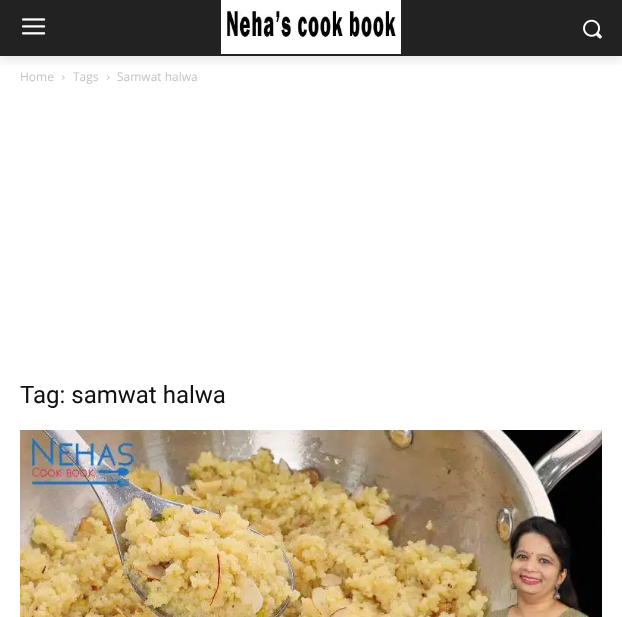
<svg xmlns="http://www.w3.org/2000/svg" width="622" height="617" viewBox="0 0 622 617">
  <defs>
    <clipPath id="clip1"><path d="M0 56h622v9H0z"/></clipPath>
  </defs>
  <rect width="100%" height="100%" fill="#fff"/>
  <path d="M0 0h622v56H0z" fill="#222"/>
  <image x="22" y="18" width="24" height="17" href="img/1.png"/>
  <image x="221" y="0" width="180" height="54" href="img/2.png"/>
  <image x="583" y="19" width="19" height="20" href="img/3.png"/>
  <g clip-path="url(#clip1)">
    <path d="M0 6h622v56H0z" fill="#00000014" filter="blur(4px)"/>
  </g>
  <image x="62" y="75" width="3" height="5" href="img/4.png"/>
  <image x="107" y="75" width="3" height="5" href="img/4.png"/>
  <image x="20" y="430" width="582" height="187" href="img/5.png"/>
  <g font-family="Open Sans" font-size="12" fill="#c3c3c3">
    <text x="20" y="81">Home</text>
    <text x="73" y="81">Tags</text>
    <text x="117" y="81">Samwat halwa</text>
  </g>
  <text x="20" y="403" font-family="Roboto" font-size="24" fill="#111">Tag: samwat halwa</text>
</svg>
